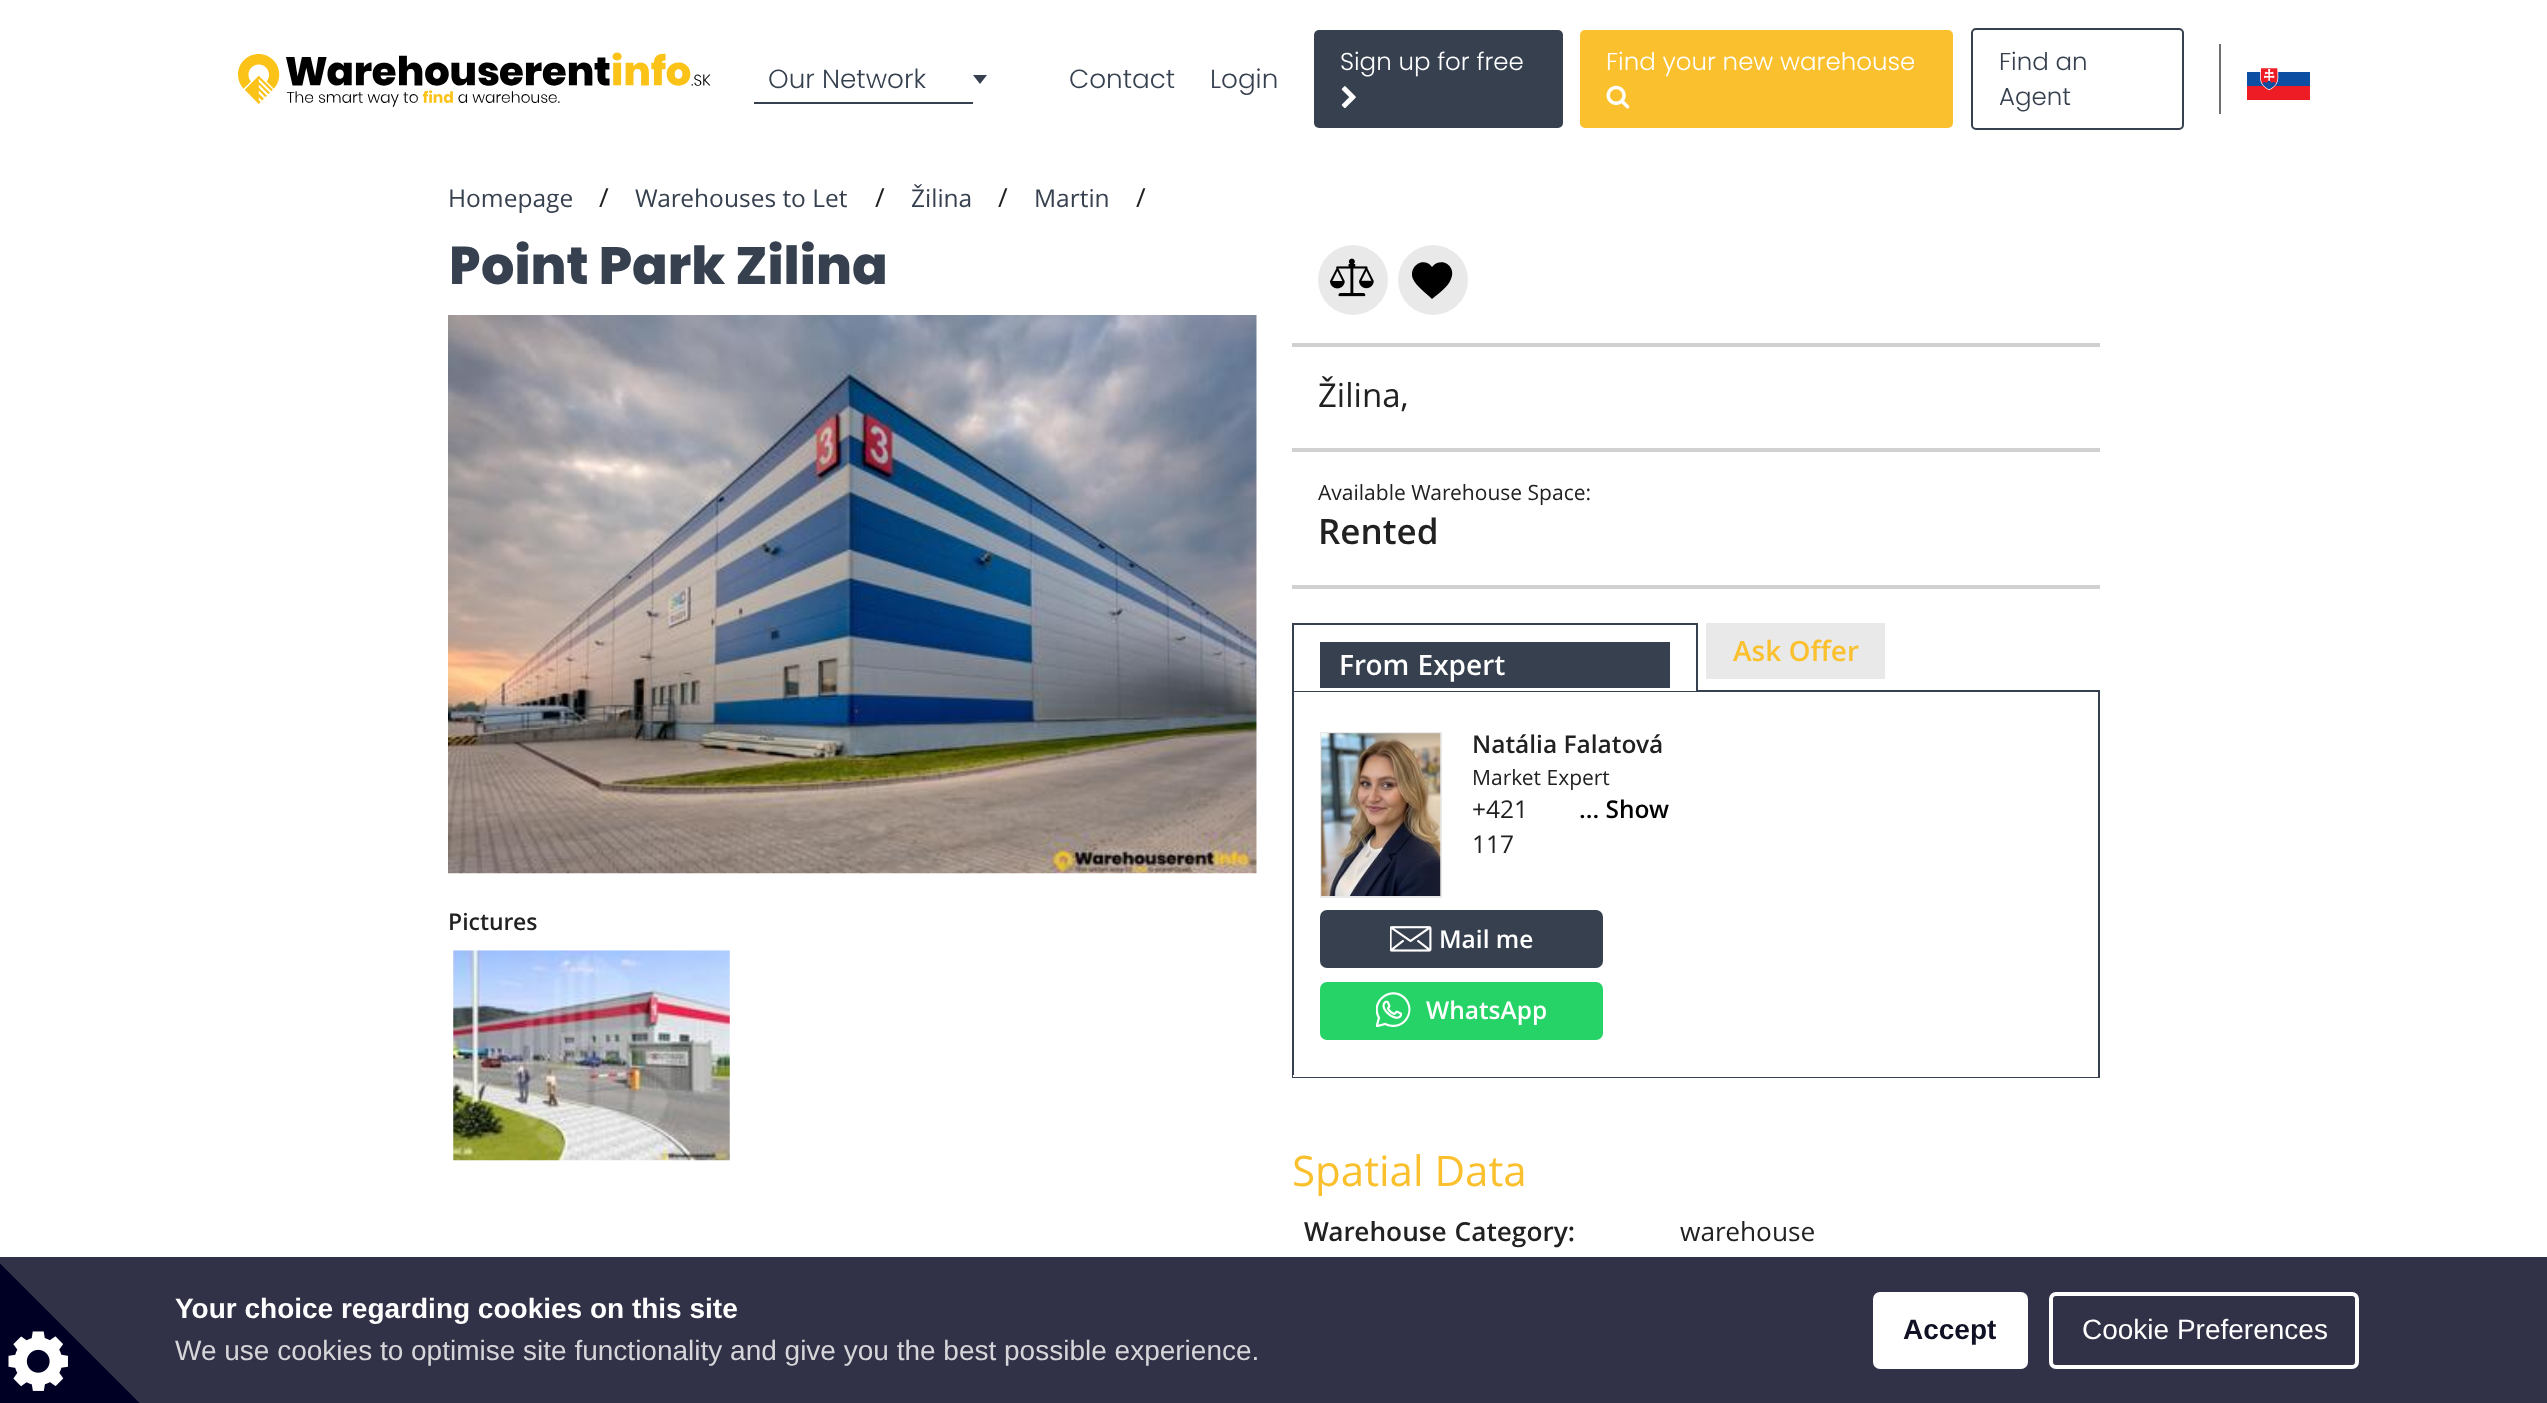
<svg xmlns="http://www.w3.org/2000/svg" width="2547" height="1403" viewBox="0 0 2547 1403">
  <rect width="100%" height="100%" fill="#fff"/>
  <image x="238" y="52" width="473" height="55" href="img/1.png"/>
  <path d="M754 102h219v2H754z" fill="#36404f"/>
  <path d="M973 75H987L980 84Z" fill="#36404f"/>
  <rect x="1314" y="30" width="249" height="98" rx="5" fill="#36404f"/>
  <image x="1341" y="86" width="15" height="23" href="img/2.png"/>
  <rect x="1580" y="30" width="373" height="98" rx="5" fill="#fac02e"/>
  <image x="1606" y="85" width="24" height="24" href="img/3.png"/>
  <rect x="1972" y="29" width="211" height="100" rx="4" fill="none" stroke="#36404f" stroke-width="2"/>
  <path d="M2219 44h2v70H2219z" fill="#707070"/>
  <image x="2247" y="68" width="63" height="32" href="img/4.png"/>
  <image x="448" y="315" width="809" height="559" href="img/5.png"/>
  <image x="453" y="950" width="277" height="211" href="img/6.png"/>
  <path d="M1292 343h808v4H1292z" fill="#d1d1d1"/>
  <circle cx="1353" cy="280" r="35" fill="#e9e9e9"/>
  <image x="1330" y="258" width="44" height="39" href="img/7.png"/>
  <circle cx="1433" cy="280" r="35" fill="#e9e9e9"/>
  <path d="M1432 299C1426 293 1417 287 1413 279C1408 266 1424 256 1432 267C1441 256 1457 266 1451 279C1448 287 1439 293 1432 299Z" fill="#000"/>
  <path d="M1292 448h808v4H1292z" fill="#d1d1d1"/>
  <path d="M1292 585h808v4H1292z" fill="#d1d1d1"/>
  <path d="M1706 623h179v56H1706z" fill="#e9e9e9"/>
  <path d="M1293 691h806v386H1293z" fill="none" stroke="#36404f" stroke-width="2"/>
  <path d="M1294 690h402v1H1294z" fill="#fff"/>
  <path d="M1292 623h406v2H1292z" fill="#36404f"/>
  <path d="M1696 623h2v68H1696z" fill="#36404f"/>
  <path d="M1292 623h2v68H1292z" fill="#36404f"/>
  <path d="M1320 642h350v46H1320z" fill="#36404f"/>
  <path d="M1293 1075h805v2H1293z" fill="#fff"/>
  <path d="M1321 733h120v164H1321z" fill="none" stroke="#e9e9e9" stroke-width="2"/>
  <image x="1321" y="733" width="120" height="163" href="img/8.png"/>
  <rect x="1320" y="910" width="283" height="58" rx="7" fill="#36404f"/>
  <image x="1390" y="926" width="42" height="26" href="img/9.png"/>
  <rect x="1320" y="982" width="283" height="58" rx="7" fill="#25d366"/>
  <image x="1376" y="992" width="35" height="35" href="img/10.png"/>
  <path d="M0 1257h2547v146H0z" fill="#313147"/>
  <image x="0" y="1264" width="140" height="139" href="img/11.png"/>
  <rect x="1875" y="1294" width="151" height="73" rx="5" fill="#fff" stroke="#fff" stroke-width="4"/>
  <rect x="2051" y="1294" width="306" height="73" rx="5" fill="none" stroke="#fff" stroke-width="4"/>
  <g font-family="Poppins" font-size="26.25" font-weight="300" fill="#36404f">
    <text x="768" y="88">Our Network</text>
    <text x="1069" y="88">Contact</text>
    <text x="1210" y="88">Login</text>
  </g>
  <g font-family="Poppins" font-size="24.5" font-weight="300" fill="#fff">
    <text x="1340" y="70">Sign up for free</text>
    <text x="1606" y="70">Find your new warehouse</text>
  </g>
  <g font-family="Poppins" font-size="24.5" font-weight="300" fill="#36404f">
    <text x="1999" y="70">Find an</text>
    <text x="1999" y="105">Agent</text>
  </g>
  <text x="448" y="207" font-family="Open Sans" font-size="24.5" fill="#36404f">Homepage</text>
  <text x="599" y="207" font-family="Open Sans" font-size="26.25" fill="#212121">/</text>
  <text x="635" y="207" font-family="Open Sans" font-size="24.5" fill="#36404f">Warehouses to Let</text>
  <text x="875" y="207" font-family="Open Sans" font-size="26.25" fill="#212121">/</text>
  <text x="911" y="207" font-family="Open Sans" font-size="24.5" fill="#36404f">Žilina</text>
  <text x="998" y="207" font-family="Open Sans" font-size="26.25" fill="#212121">/</text>
  <text x="1034" y="207" font-family="Open Sans" font-size="24.5" fill="#36404f">Martin</text>
  <text x="1136" y="207" font-family="Open Sans" font-size="26.25" fill="#212121">/</text>
  <text x="448" y="284" font-family="Noto Sans" font-size="52.5" font-weight="900" fill="#36404f">P</text>
  <text x="481" y="284" font-family="Poppins" font-size="52.5" font-weight="800" fill="#36404f">oint Park Zilina</text>
  <text x="448" y="930" font-family="Open Sans" font-size="23" font-weight="600" fill="#212121">Pictures</text>
  <text x="1318" y="407" font-family="Open Sans" font-size="33" fill="#212121">Žilina,</text>
  <text x="1318" y="500" font-family="Open Sans" font-size="21" fill="#212121">Available Warehouse Space:</text>
  <text x="1318" y="544" font-family="Open Sans" font-size="35" font-weight="600" fill="#212121">Rented</text>
  <text x="1733" y="661" font-family="Open Sans" font-size="28" font-weight="600" fill="#fac02e">Ask Offer</text>
  <text x="1339" y="675" word-spacing="1" font-family="Open Sans" font-size="28" font-weight="600" fill="#fff">From Expert</text>
  <text x="1472" y="753" font-family="Open Sans" font-size="24.5" font-weight="600" fill="#212121">Natália Falatová</text>
  <text x="1472" y="785" font-family="Open Sans" font-size="21" fill="#212121">Market Expert</text>
  <text x="1472" y="818" font-family="Open Sans" font-size="24.5" fill="#212121">+421</text>
  <text x="1579" y="818" font-family="Open Sans" font-size="24.5" font-weight="600" fill="#000">... Show</text>
  <text x="1472" y="853" font-family="Open Sans" font-size="24.5" fill="#212121">117</text>
  <g font-family="Open Sans" font-size="24.5" font-weight="600" fill="#fff">
    <text x="1439" y="948">Mail me</text>
    <text x="1426" y="1019">WhatsApp</text>
  </g>
  <text x="1292" y="1186" font-family="Open Sans" font-size="42" fill="#fac02e">Spatial Data</text>
  <text x="1304" y="1241" word-spacing="1" font-family="Open Sans" font-size="26.25" font-weight="600" fill="#212121">Warehouse Category:</text>
  <text x="1680" y="1241" font-family="Open Sans" font-size="26.25" fill="#212121">warehouse</text>
  <text x="175" y="1318" font-family="Liberation Sans" font-size="28" font-weight="bold" fill="#fff">Your choice regarding cookies on this site</text>
  <text x="175" y="1360" font-family="Liberation Sans" font-size="28" fill="#d6d6da">We use cookies to optimise site functionality and give you the best possible experience.</text>
  <text x="1903" y="1339" font-family="Liberation Sans" font-size="28" font-weight="bold" fill="#111125">Accept</text>
  <text x="2082" y="1339" font-family="Liberation Sans" font-size="28" fill="#fff">Cookie Preferences</text>
</svg>
